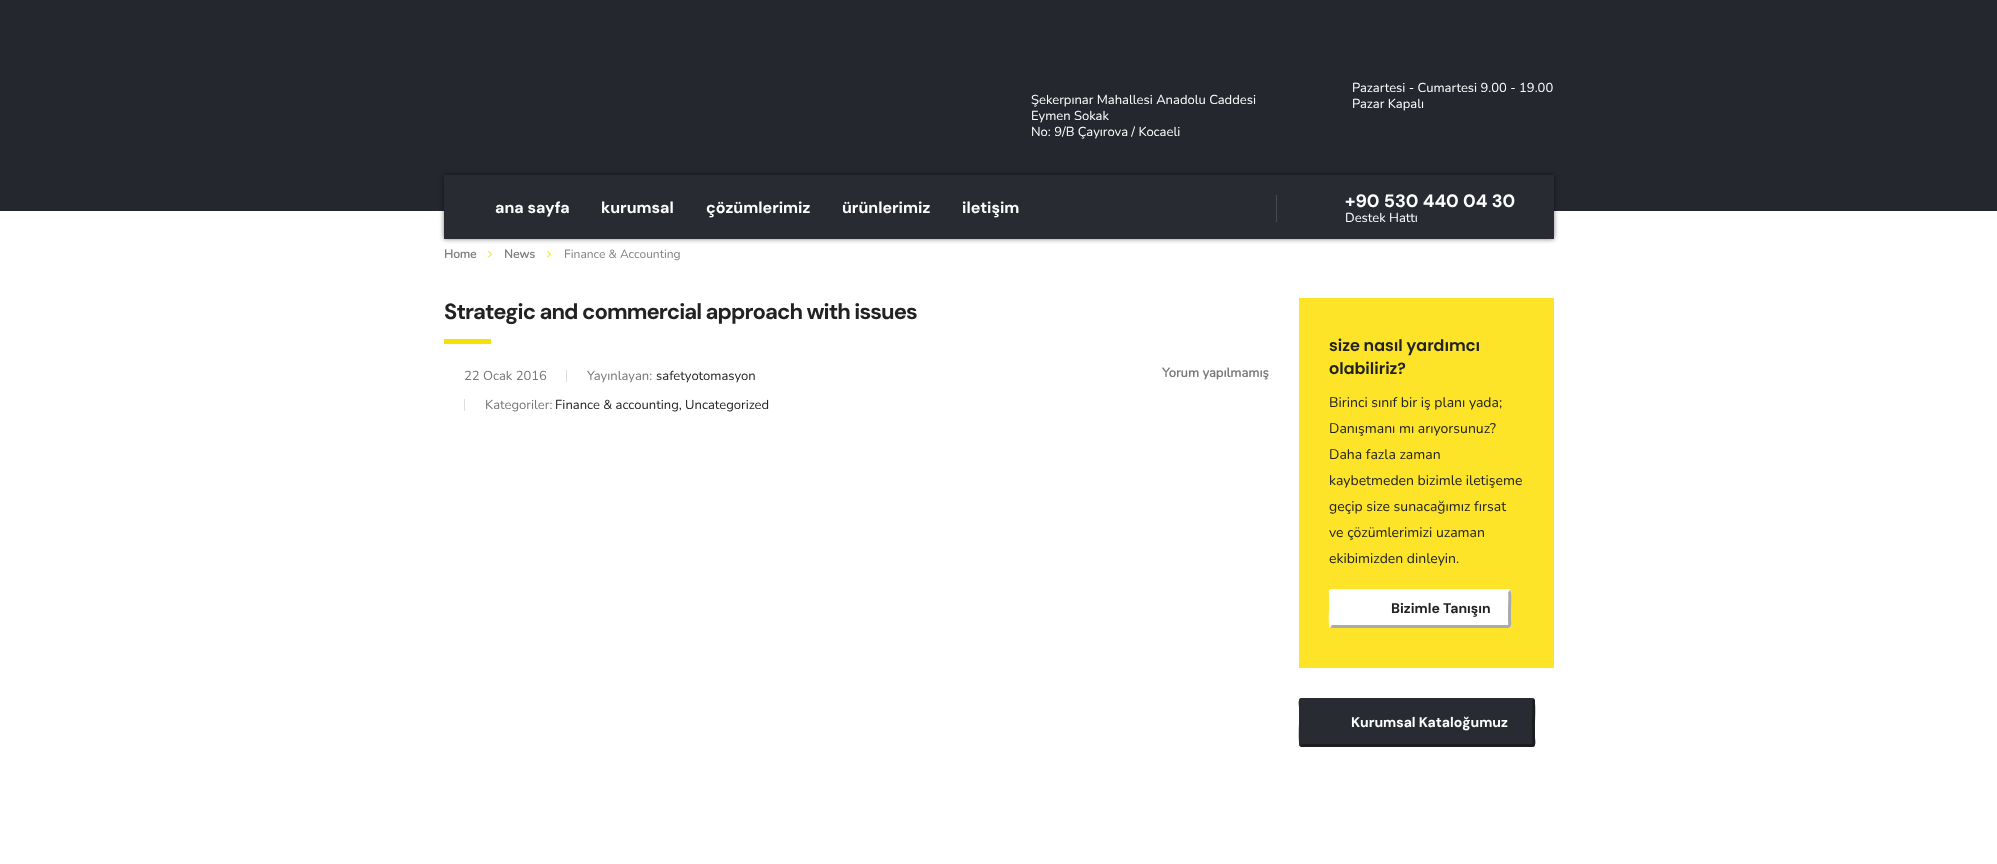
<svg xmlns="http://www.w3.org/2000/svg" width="1997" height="864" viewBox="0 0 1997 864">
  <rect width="100%" height="100%" fill="#fff"/>
  <path d="M0 0h1997v211H0z" fill="#24272d"/>
  <path d="M444 175h1110v64H444z" fill="#00000085" filter="blur(2.5px)"/>
  <path d="M444 175h1110v64H444z" fill="#282b32"/>
  <path d="M1276 195h1v27H1276z" fill="#484b51"/>
  <image x="488" y="250" width="4" height="8" href="img/1.png"/>
  <image x="547" y="250" width="4" height="8" href="img/1.png"/>
  <path d="M444 339h47v5H444z" fill="#f7e100"/>
  <path d="M566 370h1v12H566z" fill="#ddd"/>
  <path d="M464 399h1v12H464z" fill="#ddd"/>
  <path d="M1299 298h255v370H1299z" fill="#fde428"/>
  <rect x="1329" y="589" width="182" height="39" rx="3" fill="#fff"/>
  <path d="M1509 591C1510.5 592.5 1509.5 606 1509.5 608.5V619.5C1509.5 622 1510.5 626.5 1508 626.5H1332L1331 626" fill="none" stroke="#aaa" stroke-width="3"/>
  <path d="M1331 626C1329.5 624.5 1330.5 611 1330.5 608.5V597.5C1330.5 595 1329.5 590.5 1332 590.5H1508L1509 591" fill="none" stroke="#fff" stroke-width="3"/>
  <rect x="1299" y="698" width="236" height="49" rx="3" fill="#282b32"/>
  <path d="M1533 700C1534.5 701.5 1533.5 719.5 1533.5 722.5V737C1533.5 740 1535 745.5 1532 745.5H1302L1301 745" fill="none" stroke="#1b1d21" stroke-width="3"/>
  <path d="M1301 745C1299.5 743.5 1300.5 725.5 1300.5 722.5V708C1300.5 705 1299 699.5 1302 699.5H1532L1533 700" fill="none" stroke="#282b32" stroke-width="3"/>
  <g font-family="Nunito" font-size="13" font-weight="200" fill="#fff">
    <text x="1031" y="104">Şekerpınar Mahallesi Anadolu Caddesi</text>
    <text x="1031" y="120">Eymen Sokak</text>
    <text x="1031" y="136">No: 9/B Çayırova / Kocaeli</text>
    <text x="1352" y="92">Pazartesi - Cumartesi 9.00 - 19.00</text>
    <text x="1352" y="108">Pazar Kapalı</text>
  </g>
  <g font-family="DM Sans" font-size="16" font-weight="bold" fill="#fff">
    <text x="495" y="213">ana sayfa</text>
    <text x="601" y="213">kurumsal</text>
    <text x="706" y="213">çözümlerimiz</text>
    <text x="842" y="213">ürünlerimiz</text>
    <text x="962" y="213">iletişim</text>
  </g>
  <text x="1345" y="207" font-family="DM Sans" font-size="18" font-weight="bold" fill="#fff">+90 530 440 04 30</text>
  <text x="1345" y="222" font-family="Nunito" font-size="13" font-weight="200" fill="#fff">Destek Hattı</text>
  <g font-family="Nunito" font-size="12" font-weight="bold" fill="#808080">
    <text x="444" y="258">Home</text>
    <text x="504" y="258">News</text>
  </g>
  <text x="564" y="258" font-family="Nunito" font-size="12" font-weight="200" fill="#808080">Finance &amp; Accounting</text>
  <text x="444" y="319" font-family="DM Sans" font-size="22" font-weight="bold" letter-spacing="-0.9" fill="#222">Strategic and commercial approach with issues</text>
  <g font-family="Nunito" font-size="13" font-weight="200" fill="#777">
    <text x="464" y="380">22 Ocak 2016</text>
    <text x="587" y="380">Yayınlayan:</text>
  </g>
  <text x="656" y="380" font-family="Nunito" font-size="13" font-weight="200" fill="#222">safetyotomasyon</text>
  <text x="485" y="409" font-family="Nunito" font-size="13" font-weight="200" fill="#777">Kategoriler:</text>
  <text x="555" y="409" font-family="Nunito" font-size="13" font-weight="200" fill="#222">Finance &amp; accounting, Uncategorized</text>
  <text x="1162" y="377" font-family="Nunito" font-size="13" font-weight="bold" fill="#777">Yorum yapılmamış</text>
  <g font-family="Poppins" font-size="16" font-weight="600" fill="#222">
    <text x="1329" y="351">size nasıl yardımcı</text>
    <text x="1329" y="374">olabiliriz?</text>
  </g>
  <g font-family="Nunito" font-size="14" font-weight="200" fill="#222">
    <text x="1329" y="407">Birinci sınıf bir iş planı yada;</text>
    <text x="1329" y="433">Danışmanı mı arıyorsunuz?</text>
    <text x="1329" y="459">Daha fazla zaman</text>
    <text x="1329" y="485">kaybetmeden bizimle iletişeme</text>
    <text x="1329" y="511">geçip size sunacağımız fırsat</text>
    <text x="1329" y="537">ve çözümlerimizi uzaman</text>
    <text x="1329" y="563">ekibimizden dinleyin.</text>
  </g>
  <text x="1391" y="613" font-family="DM Sans" font-size="14" font-weight="bold" fill="#222">Bizimle Tanışın</text>
  <text x="1351" y="727" font-family="DM Sans" font-size="14" font-weight="bold" fill="#fff">Kurumsal Kataloğumuz</text>
</svg>
